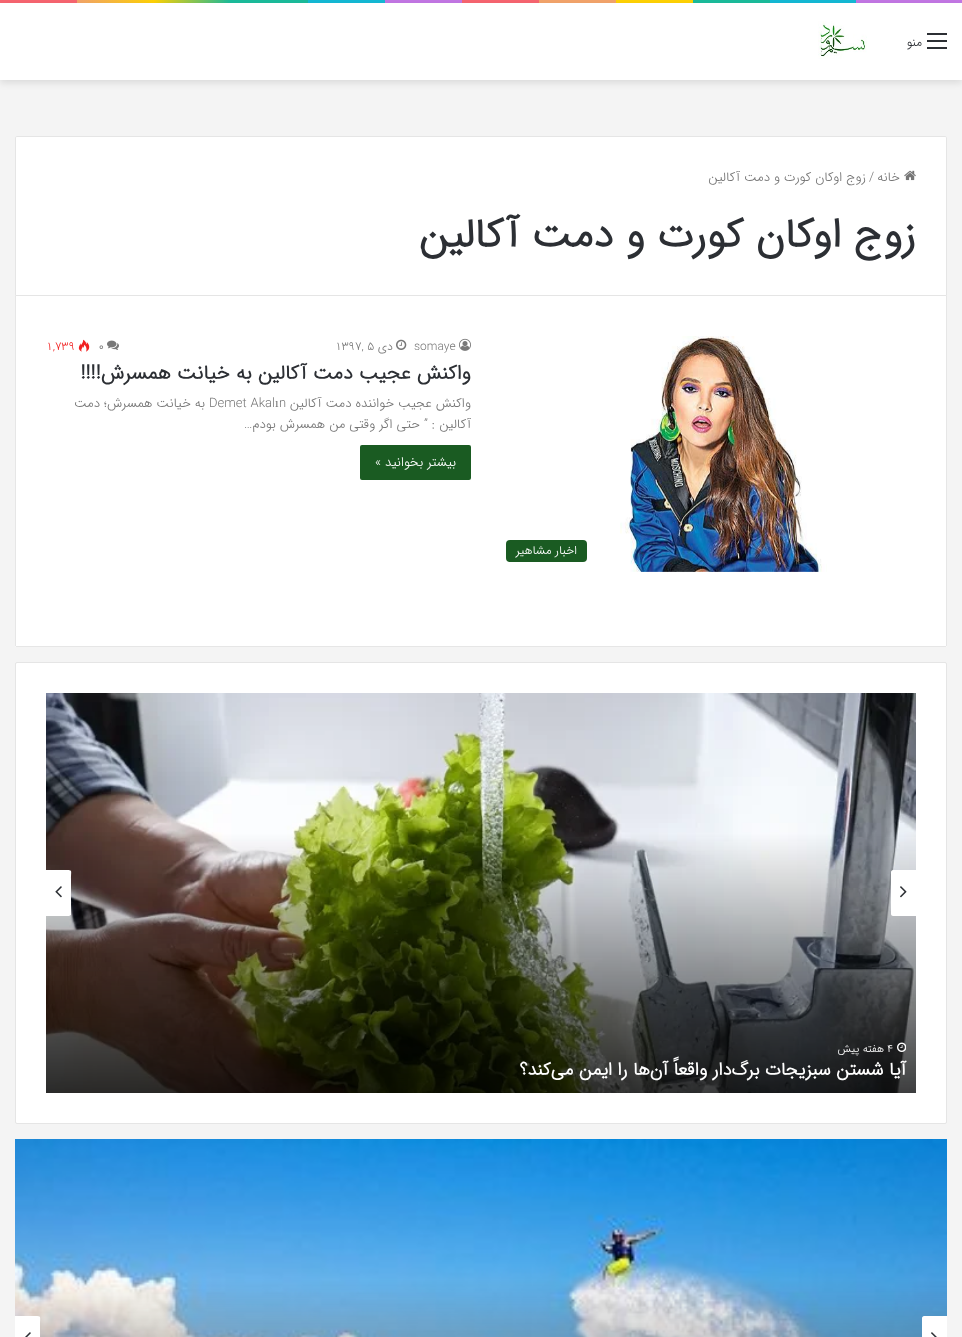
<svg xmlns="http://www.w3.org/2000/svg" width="962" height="1337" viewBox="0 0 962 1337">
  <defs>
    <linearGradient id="g1" gradientUnits="userSpaceOnUse" x1="0" y1="1.5" x2="962" y2="1.5"><stop offset="0" stop-color="#f76570"/><stop offset="0.08" stop-color="#f76570"/><stop offset="0.08" stop-color="#f3a46b"/><stop offset="0.16" stop-color="#ffd205"/><stop offset="0.24" stop-color="#1bbc9b"/><stop offset="0.32" stop-color="#1bbc9b"/><stop offset="0.32" stop-color="#14b9d5"/><stop offset="0.4" stop-color="#14b9d5"/><stop offset="0.4" stop-color="#c377e4"/><stop offset="0.48" stop-color="#c377e4"/><stop offset="0.48" stop-color="#f76570"/><stop offset="0.56" stop-color="#f76570"/><stop offset="0.56" stop-color="#f3a46b"/><stop offset="0.64" stop-color="#f3a46b"/><stop offset="0.64" stop-color="#ffd205"/><stop offset="0.72" stop-color="#ffd205"/><stop offset="0.72" stop-color="#1bbc9b"/><stop offset="0.8" stop-color="#1bbc9b"/><stop offset="0.8" stop-color="#14b9d5"/><stop offset="0.89" stop-color="#14b9d5"/><stop offset="0.89" stop-color="#c377e4"/><stop offset="1" stop-color="#c377e4"/></linearGradient>
  </defs>
  <rect width="100%" height="100%" fill="#f4f4f4"/>
  <path d="M0 0h962v3H0z" fill="url(#g1)"/>
  <path d="M0 6h962v77H0z" fill="#0000001a" filter="blur(3.5px)"/>
  <path d="M0 3h962v77H0z" fill="#fff"/>
  <path d="M927 40h20v2H927z" fill="#2c2f34"/>
  <path d="M927 33h20v2H927z" fill="#2c2f34"/>
  <path d="M927 47h20v2H927z" fill="#2c2f34"/>
  <image x="818" y="21" width="49" height="38" href="img/1.png"/>
  <path d="M17 136.5H945C946 136.5 946.5 137 946.5 138V295.5H15.5V138C15.5 137 16 136.5 17 136.5Z" fill="#fff" stroke="#e5e5e5"/>
  <image x="904" y="170" width="12" height="11" href="img/2.png"/>
  <path d="M15 296H947V645C947 646 946 647 945 647H17C16 647 15 646 15 645Z" fill="#fff"/>
  <path d="M946 296h1v350H946z" fill="#e6e6e6"/>
  <path d="M16 646h930v1H16z" fill="#e6e6e6"/>
  <path d="M15 296h1v350H15z" fill="#e6e6e6"/>
  <image x="459" y="338" width="12" height="13" href="img/3.png"/>
  <image x="396" y="339" width="11" height="11" href="img/4.png"/>
  <image x="107" y="340" width="12" height="10" href="img/5.png"/>
  <image x="78" y="339" width="12" height="13" href="img/6.png"/>
  <rect x="360" y="445" width="111" height="35" rx="2" fill="#1a5b22"/>
  <image x="620" y="336" width="207" height="236" href="img/7.png"/>
  <rect x="506" y="540" width="81" height="22" rx="4" fill="#1a5b22"/>
  <rect x="15.5" y="662.5" width="931" height="461" rx="1.5" fill="#fff" stroke="#e5e5e5"/>
  <image x="46" y="693" width="870" height="400" href="img/10.png"/>
  <path d="M916 916H893C892 916 891 915 891 914V872C891 871 892 870 893 870H916Z" fill="#fff"/>
  <image x="900" y="886" width="7" height="12" href="img/8.png"/>
  <path d="M69 916H46V870H65C73 870 71 870 71 879V915Z" fill="#fff"/>
  <image x="55" y="886" width="7" height="12" href="img/9.png"/>
  <image x="897" y="1042" width="9" height="10" href="img/11.png"/>
  <image x="15" y="1139" width="932" height="198" href="img/12.png"/>
  <path d="M947 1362H924C923 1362 922 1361 922 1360V1318C922 1317 923 1316 924 1316H947Z" fill="#fff"/>
  <image x="931" y="1332" width="6" height="5" href="img/13.png"/>
  <path d="M38 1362H15V1316H34C42 1316 40 1316 40 1325V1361Z" fill="#fff"/>
  <image x="25" y="1332" width="6" height="5" href="img/14.png"/>
  <text x="922" y="46" font-family="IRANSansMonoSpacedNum" font-size="12" font-weight="300" direction="rtl" fill="#2c2f34">منو</text>
  <text x="900" y="181" font-family="IRANSansMonoSpacedNum" font-size="13" font-weight="300" direction="rtl" fill="#767676">خانه</text>
  <text x="869" y="181" font-family="IRANSansMonoSpacedNum" font-size="13" font-weight="300" fill="#767676">/</text>
  <text x="866" y="181" font-family="IRANSansMonoSpacedNum" font-size="13" font-weight="300" direction="rtl" fill="#767676">زوج اوکان کورت و دمت آکالین</text>
  <text x="916" y="247" font-family="IRANSansMonoSpacedNum" font-size="41" font-weight="bold" direction="rtl" fill="#2c2f34">زوج اوکان کورت و دمت آکالین</text>
  <text x="414" y="350" font-family="IRANSansMonoSpacedNum" font-size="12" font-weight="300" fill="#767676">somaye</text>
  <text x="393" y="350" font-family="IRANSansMonoSpacedNum" font-size="12" font-weight="300" direction="rtl" fill="#767676">دی</text>
  <g font-family="IRANSansMonoSpacedNum" font-size="12" font-weight="300" fill="#767676">
    <text x="335" y="350">1397, 5</text>
    <text x="98" y="350">۰</text>
  </g>
  <text x="46" y="350" font-family="IRANSansMonoSpacedNum" font-size="12" font-weight="300" fill="#f12020">1,739</text>
  <text x="471" y="379" font-family="IRANSansMonoSpacedNum" font-size="20" font-weight="bold" direction="rtl" fill="#2c2f34">واکنش عجیب دمت آکالین به خیانت همسرش!!!!</text>
  <text x="471" y="407" font-family="IRANSansMonoSpacedNum" font-size="13" font-weight="300" direction="rtl" fill="#767676">واکنش عجیب خواننده دمت آکالین</text>
  <text x="279" y="407" font-family="IRANSansMonoSpacedNum" font-size="13" font-weight="300" fill="#767676">n</text>
  <text x="275" y="407" font-family="Liberation Serif" font-size="13" fill="#767676">ı</text>
  <text x="209" y="407" font-family="IRANSansMonoSpacedNum" font-size="13" font-weight="300" fill="#767676">Demet Akal</text>
  <g font-family="IRANSansMonoSpacedNum" font-size="13" font-weight="300" direction="rtl" fill="#767676">
    <text x="205" y="407">به خیانت همسرش؛ دمت</text>
    <text x="471" y="428">آکالین : ” حتی اگر وقتی من همسرش بودم…</text>
  </g>
  <text x="456" y="466" font-family="IRANSansMonoSpacedNum" font-size="13" font-weight="300" direction="rtl" fill="#fff">بیشتر بخوانید »</text>
  <text x="577" y="554" font-family="IRANSansMonoSpacedNum" font-size="12" font-weight="300" direction="rtl" fill="#fff">اخبار مشاهیر</text>
  <text x="887" y="1052" font-family="IRANSansMonoSpacedNum" font-size="11" font-weight="300" fill="#fff">4</text>
  <text x="884" y="1052" font-family="IRANSansMonoSpacedNum" font-size="11" font-weight="300" direction="rtl" fill="#fff">هفته پیش</text>
  <text x="906" y="1075" font-family="IRANSansMonoSpacedNum" font-size="18" font-weight="bold" direction="rtl" fill="#fff">آیا شستن سبزیجات برگ‌دار واقعاً آن‌ها را ایمن می‌کند؟</text>
</svg>
